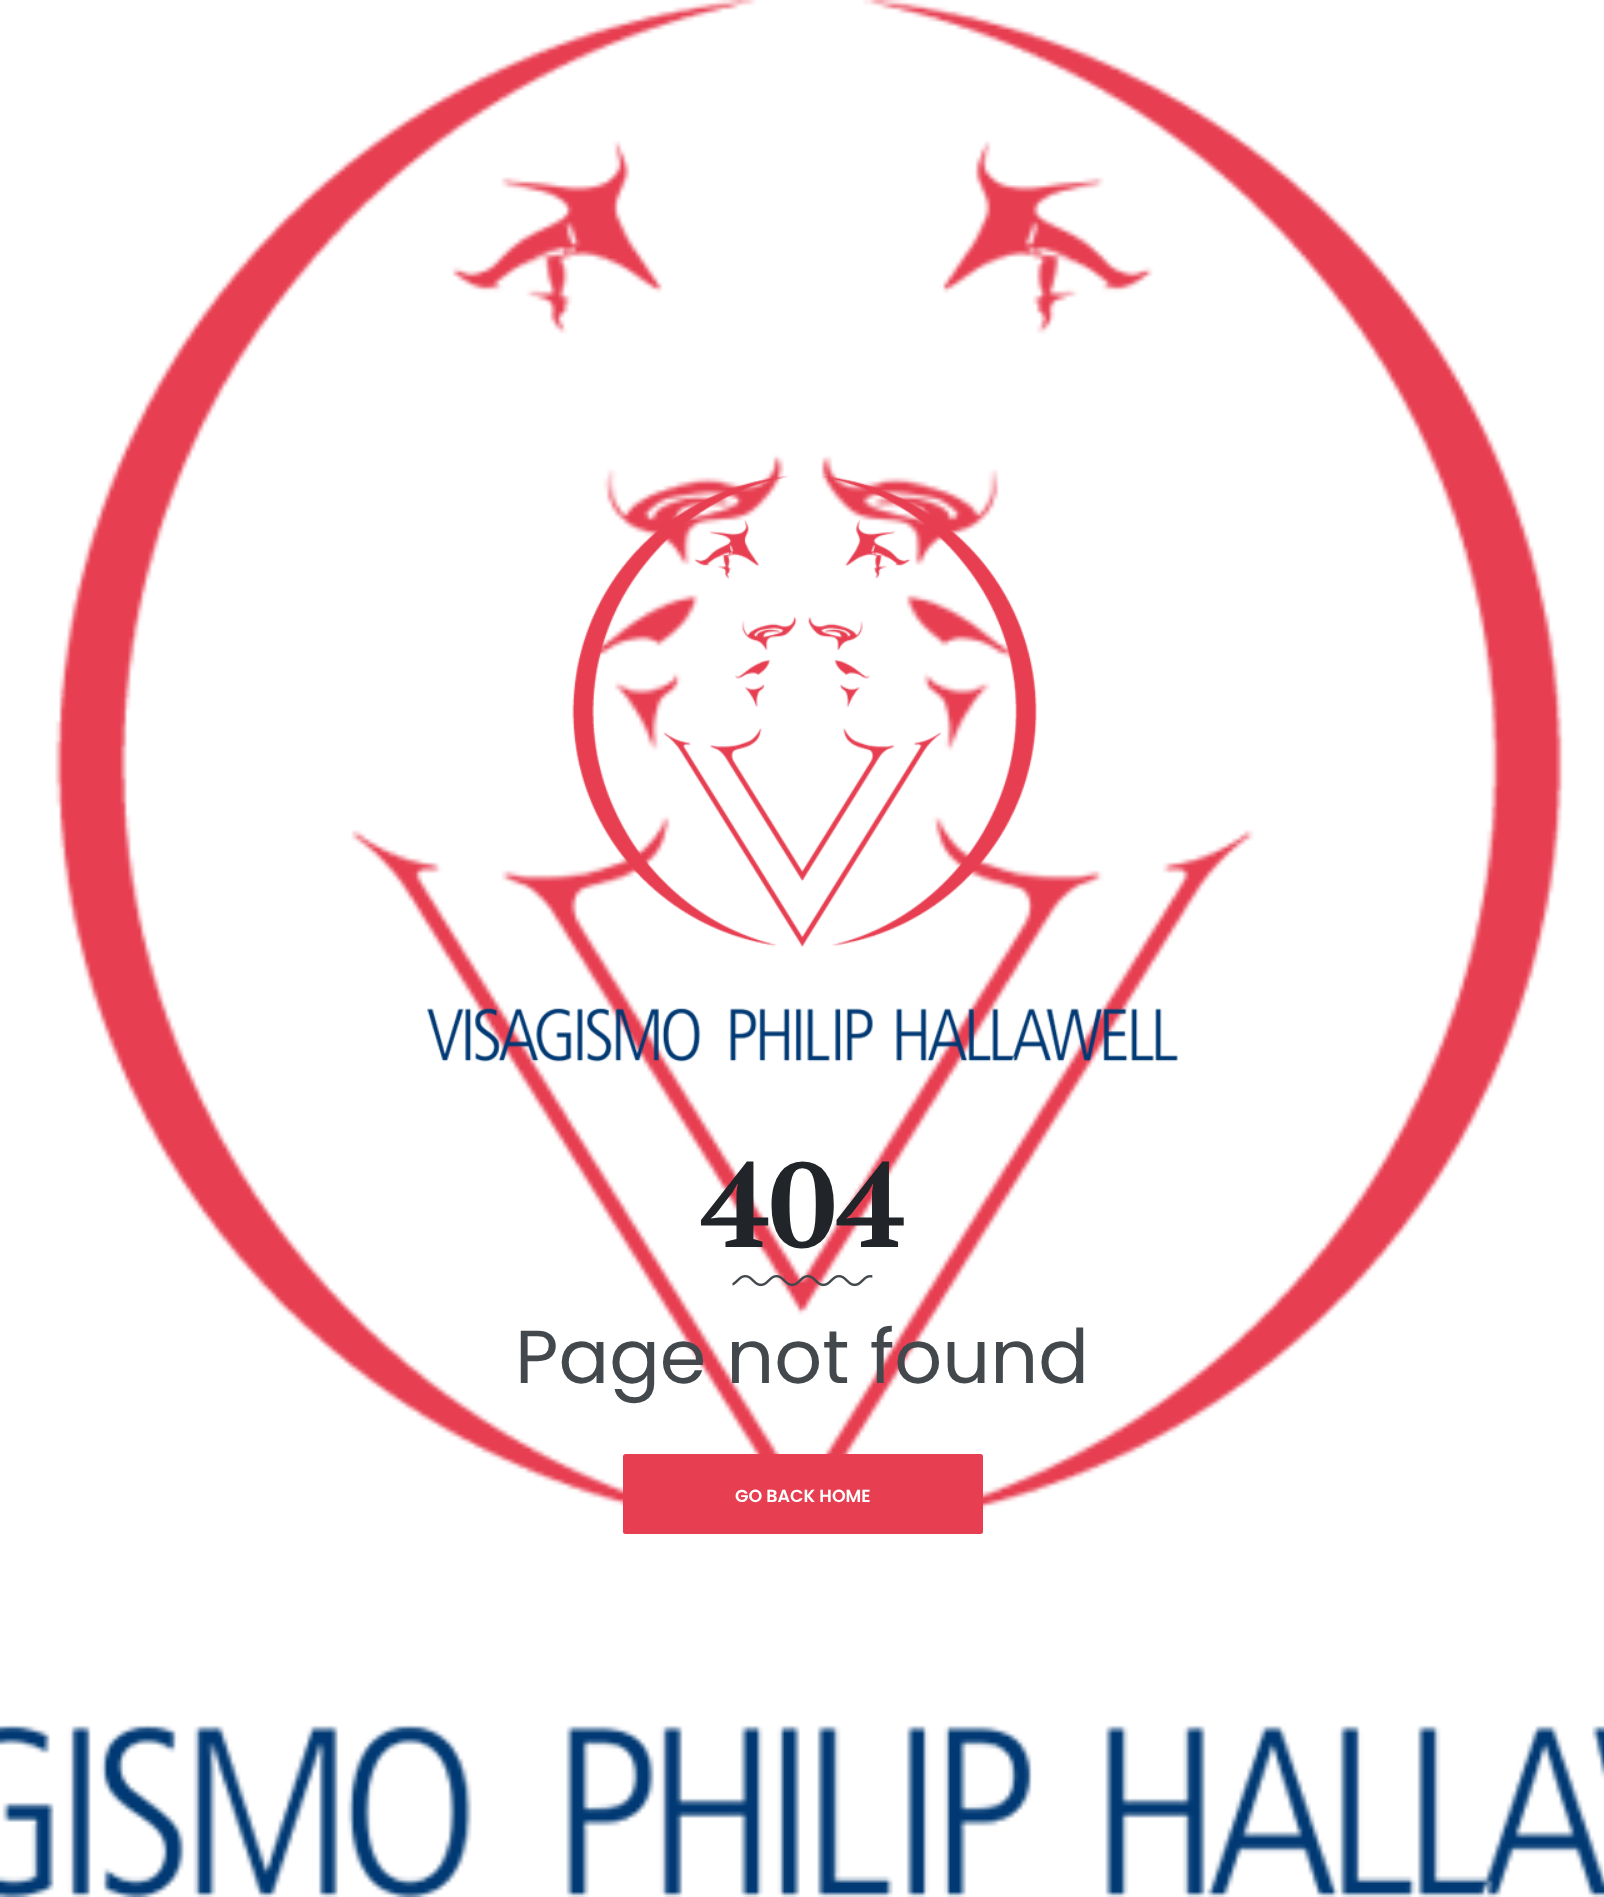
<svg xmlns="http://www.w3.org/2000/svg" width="1604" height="1897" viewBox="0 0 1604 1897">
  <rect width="100%" height="100%" fill="#fff"/>
  <image x="0" y="0" width="1604" height="1897" href="img/1.png"/>
  <image x="427" y="476" width="751" height="586" href="img/2.png"/>
  <image x="732" y="1275" width="141" height="12" href="img/3.png"/>
  <rect x="623" y="1454" width="360" height="80" rx="2.5" fill="#e73e51"/>
  <text x="701" y="1247" font-family="PT Serif" font-size="120" font-weight="bold" fill="#212529">404</text>
  <text x="515" y="1383" font-family="Poppins" font-size="75" fill="#43484d">Page not found</text>
  <text x="735" y="1502" font-family="Poppins" font-size="17.5" font-weight="600" fill="#fff">GO BACK HOME</text>
</svg>
